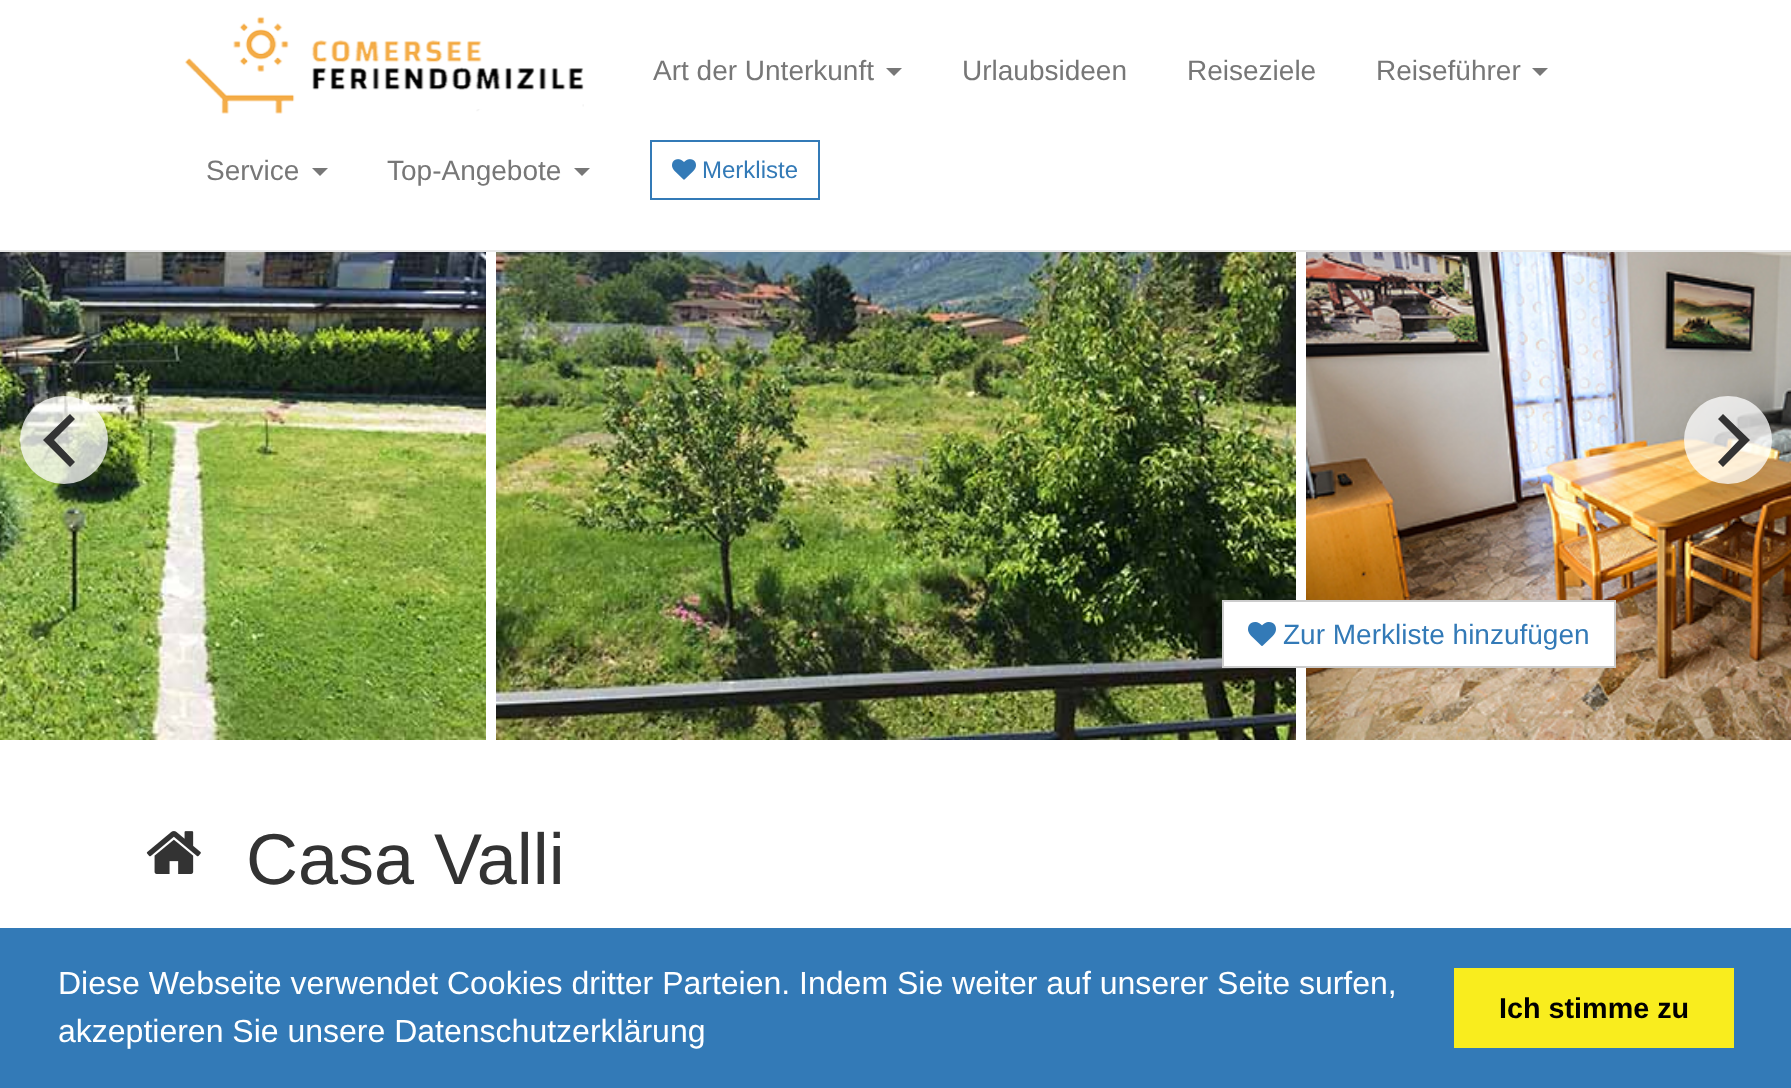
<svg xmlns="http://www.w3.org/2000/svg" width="1791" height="1088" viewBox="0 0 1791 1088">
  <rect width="100%" height="100%" fill="#fff"/>
  <path d="M0 250h1791v2H0z" fill="#e7e7e7"/>
  <image x="185" y="16" width="399" height="98" href="img/1.png"/>
  <path d="M886 68H902L894 76Z" fill="#777"/>
  <path d="M1532 68H1548L1540 76Z" fill="#777"/>
  <path d="M312 168H328L320 176Z" fill="#777"/>
  <path d="M574 168H590L582 176Z" fill="#777"/>
  <path d="M651 141h168v58H651z" fill="none" stroke="#337ab7" stroke-width="2"/>
  <image x="672" y="159" width="24" height="21" href="img/2.png"/>
  <image x="0" y="252" width="486" height="488" href="img/3.png"/>
  <image x="496" y="252" width="800" height="488" href="img/4.png"/>
  <image x="1306" y="252" width="485" height="488" href="img/5.png"/>
  <circle cx="64" cy="440" r="44" fill="#ffffffbf"/>
  <path d="M43 440L70 467L75 462L54 440L75 419L70 414Z" fill="#333"/>
  <circle cx="1728" cy="440" r="44" fill="#ffffffbf"/>
  <path d="M1750 440L1723 414L1718 419L1739 440L1718 462L1723 467Z" fill="#333"/>
  <path d="M1223 601h392v66H1223z" fill="#fff" stroke="#ccc" stroke-width="2"/>
  <image x="1248" y="622" width="28" height="24" href="img/6.png"/>
  <image x="146" y="831" width="55" height="43" href="img/7.png"/>
  <path d="M0 928h1791v160H0z" fill="#337ab7"/>
  <path d="M1454 968h280v80H1454z" fill="#f9ed1e"/>
  <g font-family="Liberation Sans" font-size="28" fill="#777">
    <text x="653" y="80">Art der Unterkunft</text>
    <text x="962" y="80">Urlaubsideen</text>
    <text x="1187" y="80">Reiseziele</text>
    <text x="1376" y="80">Reiseführer</text>
    <text x="206" y="180">Service</text>
    <text x="387" y="180">Top-Angebote</text>
  </g>
  <text x="702" y="178" font-family="Liberation Sans" font-size="24" fill="#337ab7">Merkliste</text>
  <text x="1283" y="644" font-family="Liberation Sans" font-size="28" fill="#337ab7">Zur Merkliste hinzufügen</text>
  <text x="246" y="884" font-family="Liberation Sans" font-size="72" fill="#333">Casa Valli</text>
  <g font-family="Liberation Sans" font-size="32" fill="#fff">
    <text x="58" y="994">Diese Webseite verwendet Cookies dritter Parteien. Indem Sie weiter auf unserer Seite surfen,</text>
    <text x="58" y="1042">akzeptieren Sie unsere Datenschutzerklärung</text>
  </g>
  <text x="1499" y="1018" font-family="Liberation Sans" font-size="28.75" font-weight="bold" fill="#000">Ich stimme zu</text>
</svg>
